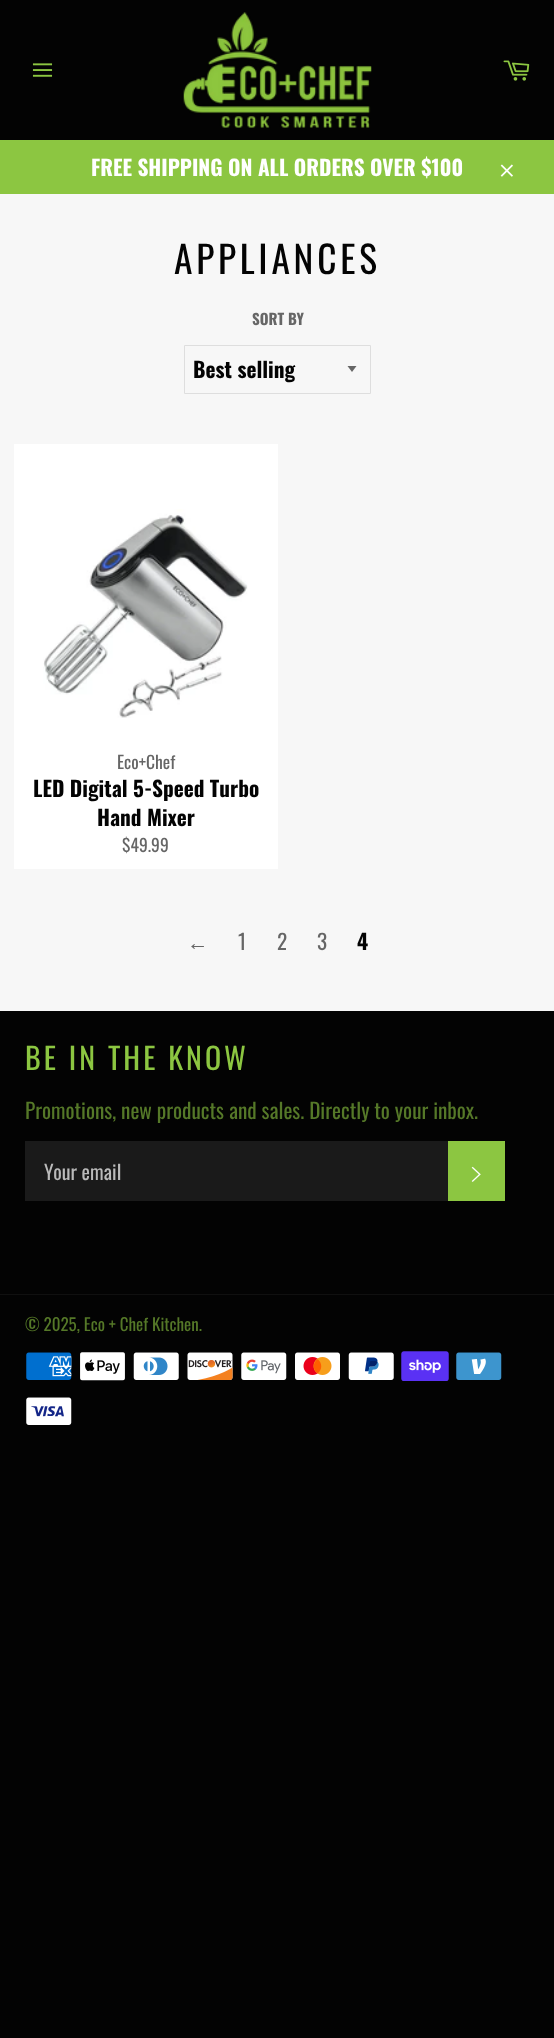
<svg xmlns="http://www.w3.org/2000/svg" width="554" height="2038" viewBox="0 0 554 2038">
  <rect width="100%" height="100%" fill="#030303"/>
  <path d="M0 194h554v817H0z" fill="#f7f7f7"/>
  <image x="32" y="63" width="21" height="14" href="img/1.png"/>
  <image x="183" y="12" width="189" height="116" href="img/2.png"/>
  <image x="503" y="60" width="27" height="21" href="img/3.png"/>
  <path d="M0 140h554v54H0z" fill="#8cc641"/>
  <image x="500" y="164" width="13" height="13" href="img/4.png"/>
  <path d="M347.5 366L352 372L356.5 366Z" fill="#666"/>
  <path d="M184.5 345.5h186v48H184.5z" fill="none" stroke="#dedede"/>
  <path d="M14 444h264v425H14z" fill="#fff"/>
  <image x="43" y="509" width="205" height="209" href="img/5.png"/>
  <path d="M25 1141h423v60H25z" fill="#1a1a1a"/>
  <path d="M448 1141h57v60H448z" fill="#8cc641"/>
  <image x="471" y="1166" width="10" height="16" href="img/6.png"/>
  <path d="M0 1294h554v1H0z" fill="#101010"/>
  <image x="26" y="1352" width="46" height="28" href="img/7.png"/>
  <image x="80" y="1352" width="45" height="29" href="img/8.png"/>
  <image x="133" y="1352" width="46" height="28" href="img/9.png"/>
  <image x="187" y="1352" width="46" height="28" href="img/10.png"/>
  <image x="241" y="1352" width="46" height="28" href="img/11.png"/>
  <image x="295" y="1352" width="45" height="28" href="img/12.png"/>
  <image x="348" y="1352" width="46" height="28" href="img/13.png"/>
  <image x="401" y="1351" width="48" height="30" href="img/14.png"/>
  <image x="456" y="1352" width="46" height="28" href="img/15.png"/>
  <image x="26" y="1397" width="46" height="28" href="img/16.png"/>
  <text x="91" y="176" font-family="Oswald" font-size="21.25" font-weight="bold" fill="#fff">FREE SHIPPING ON ALL ORDERS OVER $100</text>
  <text x="174" y="274" font-family="Oswald" font-size="37.5" letter-spacing="3.75" fill="#030303">APPLIANCES</text>
  <text x="252" y="325" font-family="Oswald" font-size="15" font-weight="bold" fill="#666">SORT BY</text>
  <text x="193" y="378" font-family="Oswald" font-size="21.25" font-weight="bold" fill="#030303">Best selling</text>
  <text x="117" y="769" font-family="Oswald" font-size="17.5" fill="#666">Eco+Chef</text>
  <g font-family="Oswald" font-size="21.25" font-weight="bold" fill="#030303">
    <text x="33" y="797">LED Digital 5-Speed Turbo</text>
    <text x="97" y="826">Hand Mixer</text>
  </g>
  <text x="122" y="852" font-family="Oswald" font-size="17.5" fill="#666">$49.99</text>
  <text x="187" y="950" font-family="Liberation Sans" font-size="21.25" fill="#666">←</text>
  <g font-family="Oswald" font-size="21.25" fill="#666">
    <text x="238" y="950">1</text>
    <text x="277" y="950">2</text>
    <text x="317" y="950">3</text>
  </g>
  <text x="357" y="950" font-family="Oswald" font-size="21.25" font-weight="bold" fill="#030303">4</text>
  <text x="25" y="1070" font-family="Oswald" font-size="30" letter-spacing="3" fill="#8cc641">BE IN THE KNOW</text>
  <text x="25" y="1119" font-family="Oswald" font-size="21.25" fill="#557828">Promotions, new products and sales. Directly to your inbox.</text>
  <text x="44" y="1180" font-family="Oswald" font-size="20" fill="#bababa">Your email</text>
  <text x="25" y="1331" font-family="Oswald" font-size="17" fill="#557828">© 2025, Eco + Chef Kitchen.</text>
</svg>
